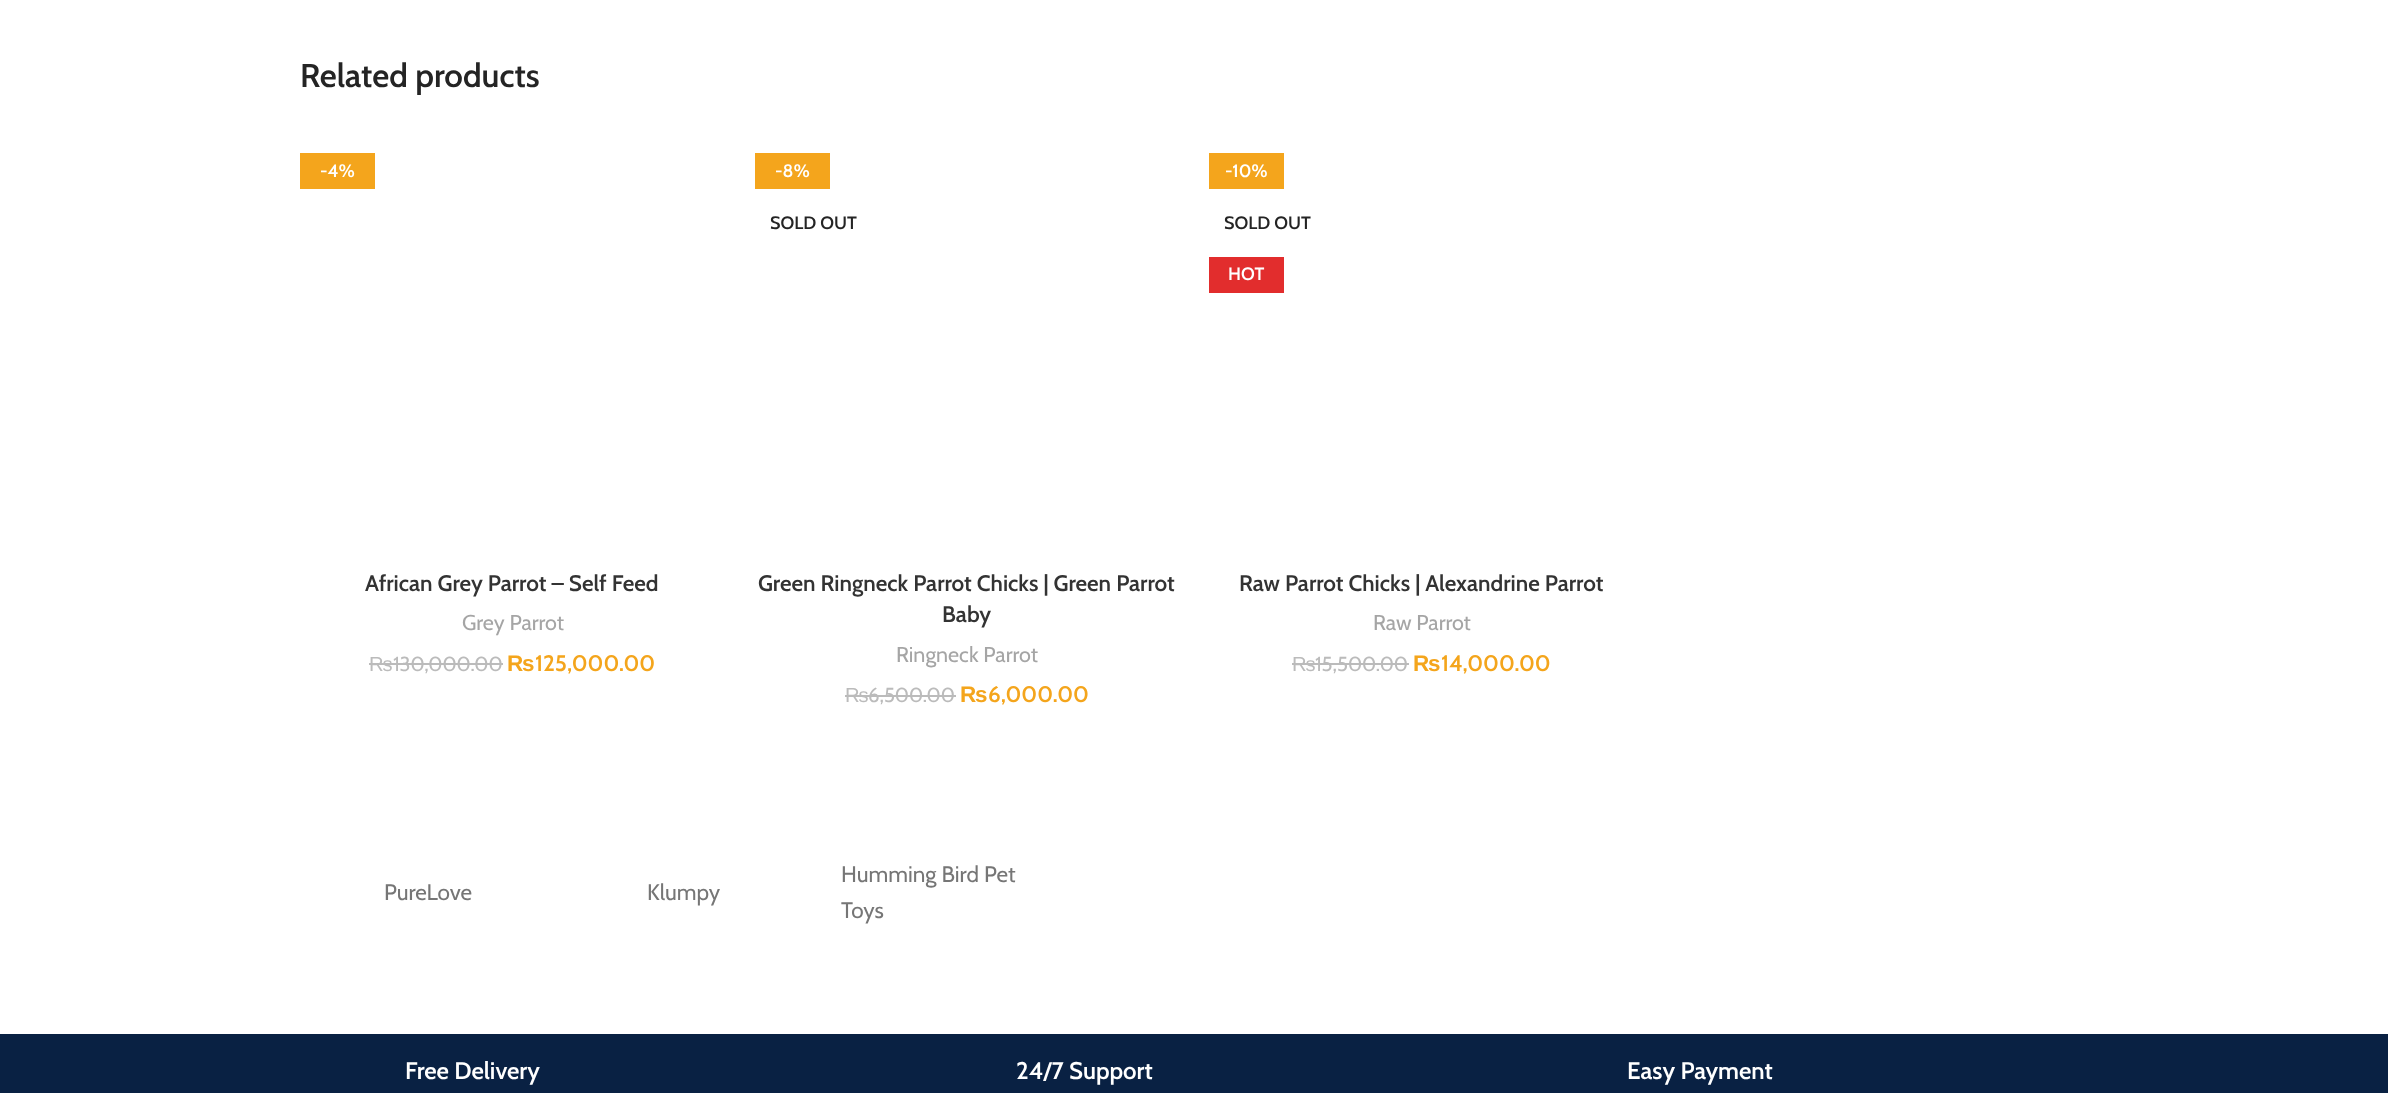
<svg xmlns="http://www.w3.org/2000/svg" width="2388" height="1093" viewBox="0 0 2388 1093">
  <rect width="100%" height="100%" fill="#fff"/>
  <path d="M300 153h75v36H300z" fill="#f4a51c"/>
  <path d="M369 663h24v2H369z" fill="#bbb"/>
  <path d="M393 663h110v2H393z" fill="#bbb"/>
  <path d="M755 153h75v36H755z" fill="#f4a51c"/>
  <path d="M845 695h24v2H845z" fill="#bbb"/>
  <path d="M869 695h87v2H869z" fill="#bbb"/>
  <path d="M1209 153h75v36H1209z" fill="#f4a51c"/>
  <path d="M1209 257h75v36H1209z" fill="#e22d2d"/>
  <path d="M1292 663h24v2H1292z" fill="#bbb"/>
  <path d="M1316 663h93v2H1316z" fill="#bbb"/>
  <path d="M0 1034h2388v59H0z" fill="#092143"/>
  <text x="300" y="87" font-family="Cabin" font-size="33" font-weight="600" fill="#242424">Related products</text>
  <text x="320" y="177" font-family="Cabin" font-size="18" font-weight="600" fill="#fff">-4%</text>
  <text x="365" y="591" font-family="Cabin" font-size="22.5" font-weight="600" fill="#333">African Grey Parrot – Self Feed</text>
  <text x="462" y="630" font-family="Cabin" font-size="21.5" fill="#a5a5a5">Grey Parrot</text>
  <text x="369" y="671" font-family="Liberation Sans" font-size="20.25" fill="#bbb">₨</text>
  <text x="393" y="671" font-family="Cabin" font-size="20.25" fill="#bbb">130,000.00</text>
  <text x="507" y="671" font-family="Liberation Sans" font-size="22.5" font-weight="bold" fill="#f4a51c">₨</text>
  <text x="535" y="671" font-family="Cabin" font-size="22.5" font-weight="600" fill="#f4a51c">125,000.00</text>
  <text x="775" y="177" font-family="Cabin" font-size="18" font-weight="600" fill="#fff">-8%</text>
  <text x="770" y="229" font-family="Cabin" font-size="18" font-weight="600" fill="#242424">SOLD OUT</text>
  <g font-family="Cabin" font-size="22.5" font-weight="600" fill="#333">
    <text x="758" y="591">Green Ringneck Parrot Chicks | Green Parrot</text>
    <text x="942" y="622">Baby</text>
  </g>
  <text x="896" y="662" font-family="Cabin" font-size="21.5" fill="#a5a5a5">Ringneck Parrot</text>
  <text x="845" y="702" font-family="Liberation Sans" font-size="20.25" fill="#bbb">₨</text>
  <text x="868" y="702" font-family="Cabin" font-size="20.25" fill="#bbb">6,500.00</text>
  <text x="960" y="702" font-family="Liberation Sans" font-size="22.5" font-weight="bold" fill="#f4a51c">₨</text>
  <text x="988" y="702" font-family="Cabin" font-size="22.5" font-weight="600" fill="#f4a51c">6,000.00</text>
  <text x="1225" y="177" font-family="Cabin" font-size="18" font-weight="600" fill="#fff">-10%</text>
  <text x="1224" y="229" font-family="Cabin" font-size="18" font-weight="600" fill="#242424">SOLD OUT</text>
  <text x="1228" y="280" font-family="Cabin" font-size="18" font-weight="600" fill="#fff">HOT</text>
  <text x="1239" y="591" font-family="Cabin" font-size="22.5" font-weight="600" fill="#333">Raw Parrot Chicks | Alexandrine Parrot</text>
  <text x="1373" y="630" font-family="Cabin" font-size="21.5" fill="#a5a5a5">Raw Parrot</text>
  <text x="1292" y="671" font-family="Liberation Sans" font-size="20.25" fill="#bbb">₨</text>
  <text x="1315" y="671" font-family="Cabin" font-size="20.25" fill="#bbb">15,500.00</text>
  <text x="1413" y="671" font-family="Liberation Sans" font-size="22.5" font-weight="bold" fill="#f4a51c">₨</text>
  <text x="1441" y="671" font-family="Cabin" font-size="22.5" font-weight="600" fill="#f4a51c">14,000.00</text>
  <g font-family="Cabin" font-size="22.5" fill="#767676">
    <text x="384" y="900">PureLove</text>
    <text x="647" y="900">Klumpy</text>
    <text x="841" y="882">Humming Bird Pet</text>
    <text x="841" y="918">Toys</text>
  </g>
  <g font-family="Cabin" font-size="24" font-weight="600" fill="#fff">
    <text x="405" y="1079">Free Delivery</text>
    <text x="1016" y="1079">24/7 Support</text>
    <text x="1627" y="1079">Easy Payment</text>
  </g>
</svg>
